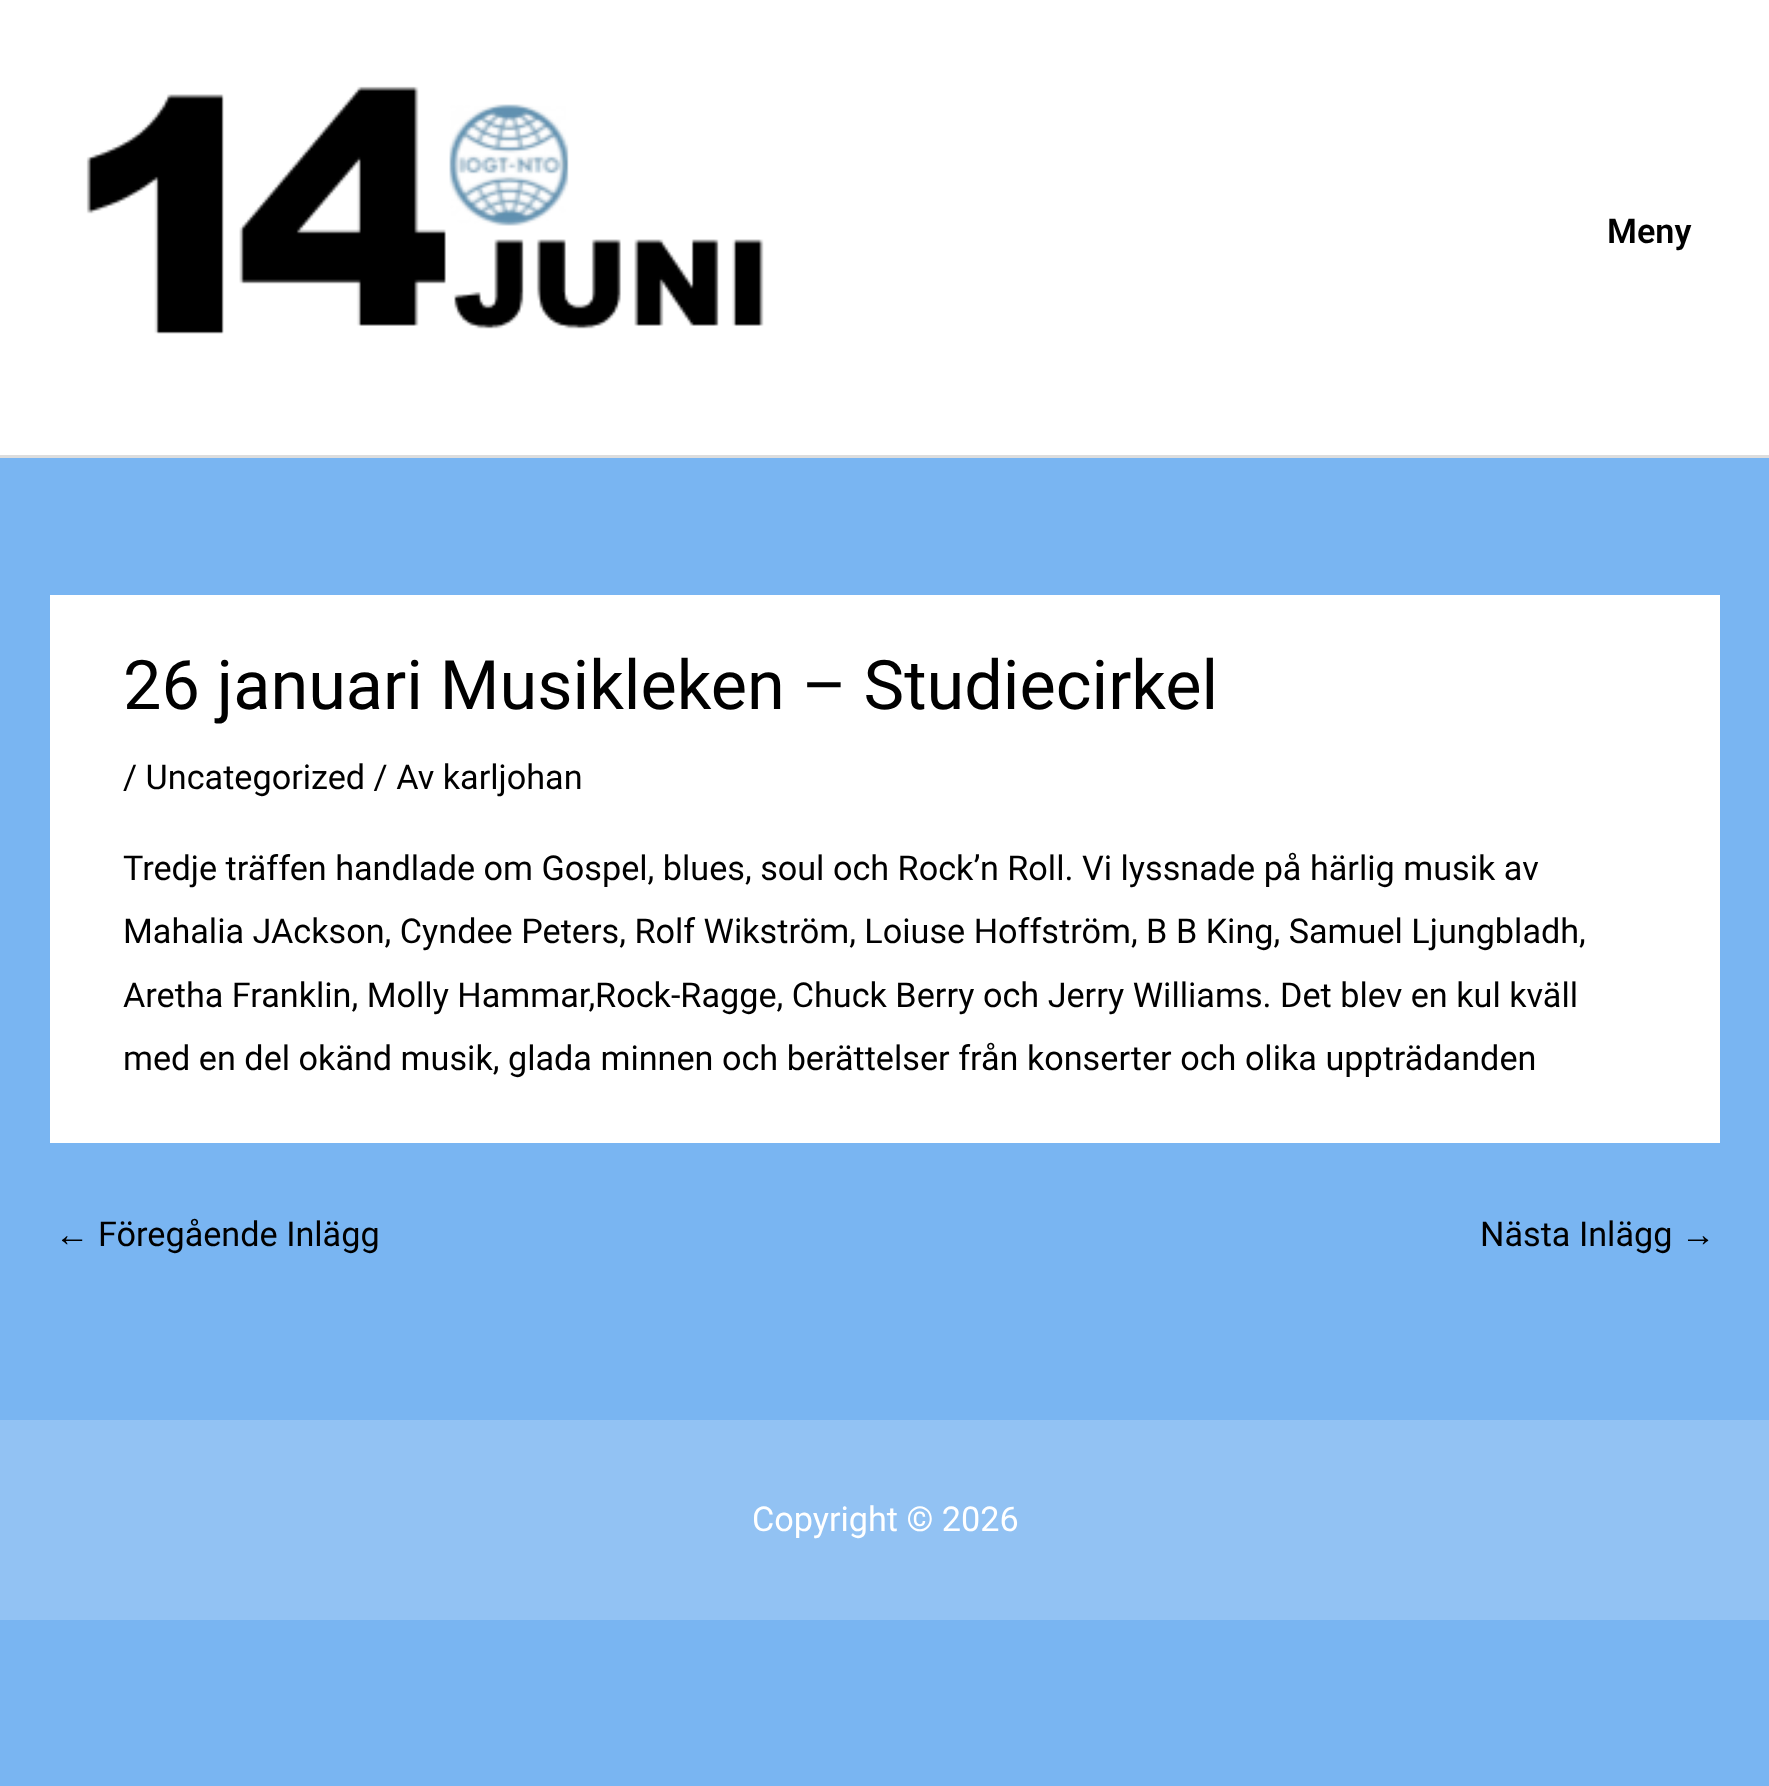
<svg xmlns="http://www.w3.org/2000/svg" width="1769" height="1786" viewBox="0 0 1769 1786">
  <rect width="100%" height="100%" fill="#79b5f2"/>
  <path d="M0 0h1769v455H0z" fill="#fff"/>
  <path d="M0 455h1769v3H0z" fill="#ddd"/>
  <image x="86" y="86" width="678" height="248" href="img/1.png"/>
  <path d="M50 595h1670v548H50z" fill="#fff"/>
  <path d="M0 1420h1769v200H0z" fill="#92c2f3"/>
  <text x="1607" y="243" font-family="Roboto" font-size="34.2" font-weight="600" fill="#000">Meny</text>
  <text x="123" y="709" font-family="Roboto" font-size="68.4" fill="#000">26 januari Musikleken – Studiecirkel</text>
  <g font-family="Roboto" font-size="34.2" fill="#000">
    <text x="123" y="789">/ Uncategorized / Av karljohan</text>
    <text x="123" y="880">Tredje träffen handlade om Gospel, blues, soul och Rock’n Roll. Vi lyssnade på härlig musik av</text>
    <text x="123" y="943">Mahalia JAckson, Cyndee Peters, Rolf Wikström, Loiuse Hoffström, B B King, Samuel Ljungbladh,</text>
    <text x="123" y="1007">Aretha Franklin, Molly Hammar,Rock-Ragge, Chuck Berry och Jerry Williams. Det blev en kul kväll</text>
    <text x="123" y="1070">med en del okänd musik, glada minnen och berättelser från konserter och olika uppträdanden</text>
  </g>
  <text x="55" y="1246" font-family="Liberation Sans" font-size="34.2" fill="#000">←</text>
  <g font-family="Roboto" font-size="34.2" fill="#000">
    <text x="98" y="1246">Föregående Inlägg</text>
    <text x="1480" y="1246">Nästa Inlägg</text>
  </g>
  <text x="1681" y="1246" font-family="Liberation Sans" font-size="34.2" fill="#000">→</text>
  <text x="752" y="1531" font-family="Roboto" font-size="34.2" fill="#fff">Copyright © 2026</text>
</svg>
